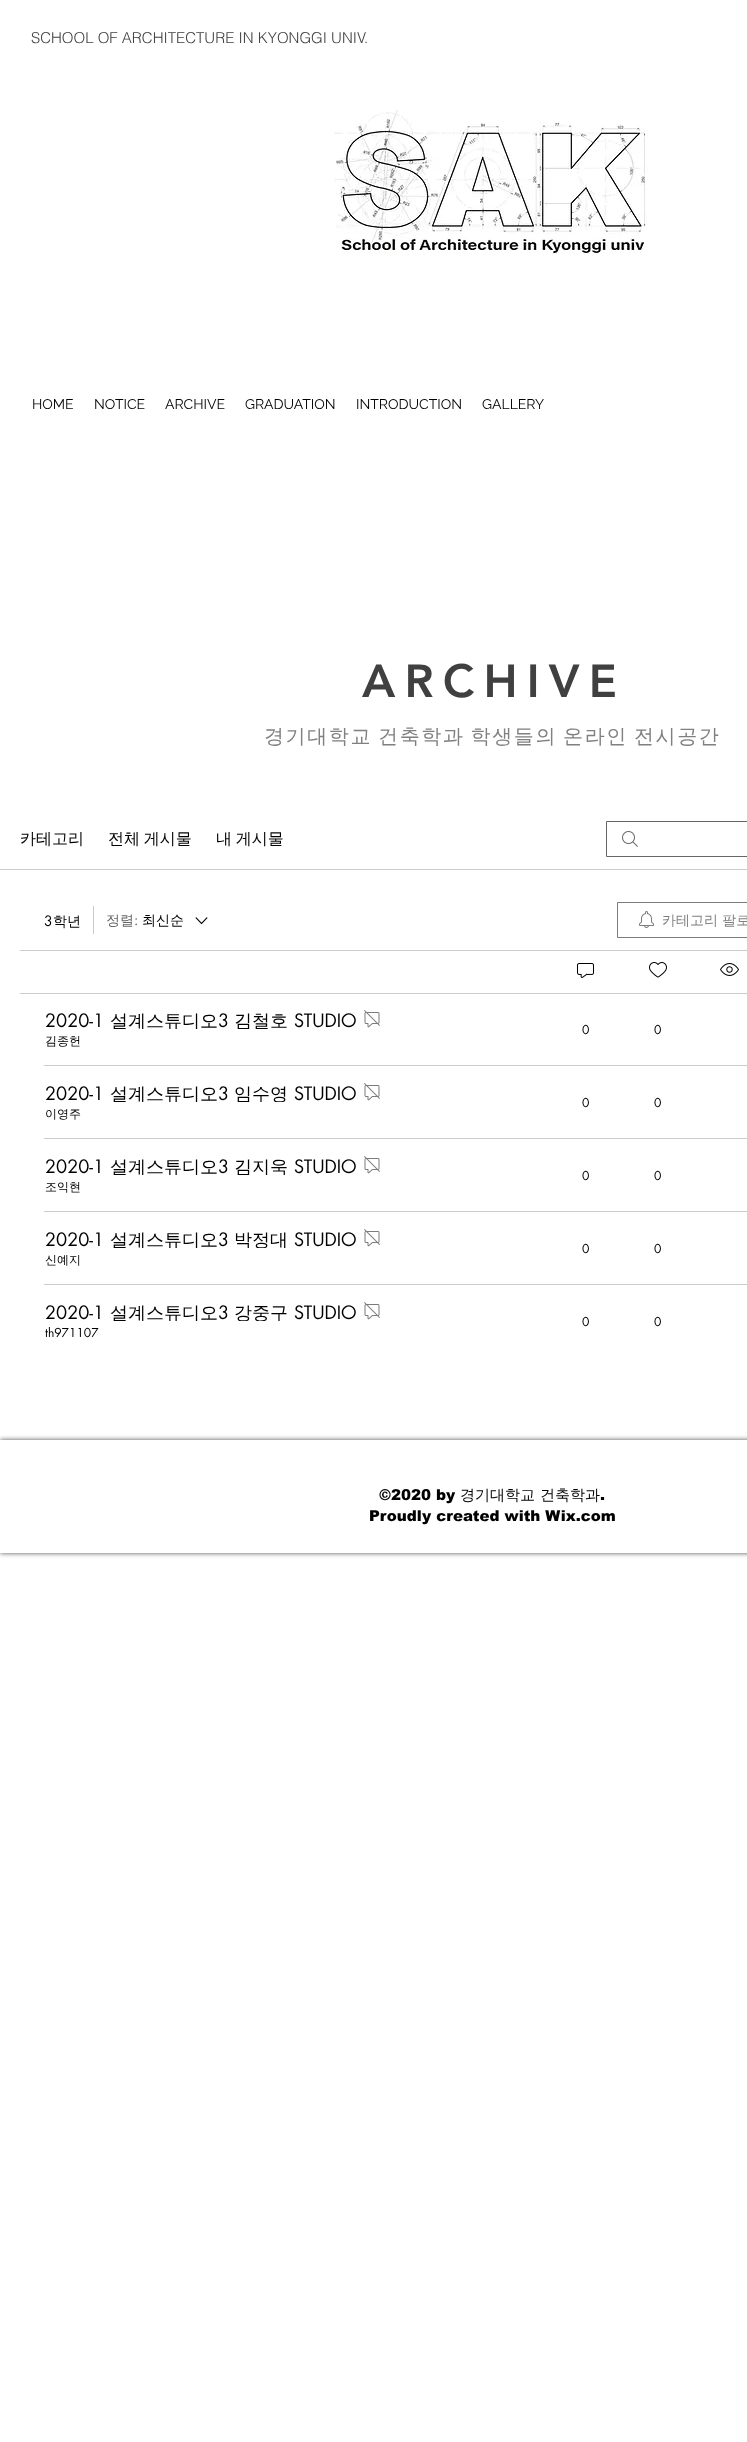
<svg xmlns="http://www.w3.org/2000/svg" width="747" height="2442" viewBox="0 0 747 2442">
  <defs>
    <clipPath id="clip1"><path d="M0 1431H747V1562H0ZM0 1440H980V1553H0Z" clip-rule="evenodd"/></clipPath>
    <clipPath id="clip2"><path d="M45 1011h311v18H45z"/></clipPath>
    <clipPath id="clip3"><path d="M45 1084h311v18H45z"/></clipPath>
    <clipPath id="clip4"><path d="M45 1157h311v18H45z"/></clipPath>
    <clipPath id="clip5"><path d="M45 1230h311v18H45z"/></clipPath>
    <clipPath id="clip6"><path d="M45 1303h311v18H45z"/></clipPath>
  </defs>
  <rect width="100%" height="100%" fill="#fff"/>
  <image x="334" y="110" width="314" height="145" href="img/1.png"/>
  <path d="M0 869h747v1H0z" fill="#ccc"/>
  <image x="622" y="831" width="16" height="16" href="img/2.png"/>
  <path d="M606.5 821.5h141v35H606.5z" fill="none" stroke="#666"/>
  <path d="M93 906h1v28H93z" fill="#ccc"/>
  <image x="195" y="917" width="13" height="8" href="img/3.png"/>
  <path d="M617.5 902.5h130v35H617.5z" fill="none" stroke="#7c7c7c"/>
  <image x="639" y="911" width="15" height="17" href="img/4.png"/>
  <path d="M20 950h727v1H20z" fill="#ccc"/>
  <image x="577" y="963" width="17" height="15" href="img/5.png"/>
  <image x="649" y="962" width="18" height="16" href="img/6.png"/>
  <image x="720" y="963" width="19" height="13" href="img/7.png"/>
  <path d="M20 993h727v1H20z" fill="#ccc"/>
  <image x="364" y="1010" width="16" height="18" href="img/8.png"/>
  <path d="M44 1065h703v1H44z" fill="#ccc"/>
  <image x="364" y="1083" width="16" height="18" href="img/8.png"/>
  <path d="M44 1138h703v1H44z" fill="#ccc"/>
  <image x="364" y="1156" width="16" height="18" href="img/8.png"/>
  <path d="M44 1211h703v1H44z" fill="#ccc"/>
  <image x="364" y="1229" width="16" height="18" href="img/8.png"/>
  <path d="M44 1284h703v1H44z" fill="#ccc"/>
  <image x="364" y="1302" width="16" height="18" href="img/8.png"/>
  <g clip-path="url(#clip1)">
    <path d="M0 1440h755v113H0z" fill="#000000b3" filter="blur(2.5px)"/>
  </g>
  <text x="31" y="43" font-family="helvetica" font-size="15" font-weight="300" fill="#404040">SCHOOL OF ARCHITECTURE IN KYONGGI UNIV.</text>
  <g font-family="Raleway" font-size="14" fill="#000">
    <text x="32" y="409">HOME</text>
    <text x="94" y="409">NOTICE</text>
    <text x="165" y="409">ARCHIVE</text>
    <text x="245" y="409">GRADUATION</text>
    <text x="356" y="409">INTRODUCTION</text>
    <text x="482" y="409">GALLERY</text>
  </g>
  <text x="362" y="697" font-family="'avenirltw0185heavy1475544'" font-size="46" font-weight="900" letter-spacing="9.25" fill="#404040">ARCHIVE</text>
  <text x="264" y="743" word-spacing="-1.5" font-family="WenQuanYi Zen Hei" font-size="20" font-weight="500" letter-spacing="1.6" fill="#808080">경기대학교 건축학과 학생들의 온라인 전시공간</text>
  <g font-family="WenQuanYi Zen Hei" font-size="16" font-weight="500" fill="#000">
    <text x="20" y="844">카테고리</text>
    <text x="108" y="844" word-spacing="-1">전체 게시물</text>
    <text x="216" y="844" word-spacing="-1">내 게시물</text>
  </g>
  <text x="44" y="926" font-family="futura" font-size="14" fill="#000">3</text>
  <text x="53" y="926" font-family="WenQuanYi Zen Hei" font-size="14" font-weight="500" fill="#000">학년</text>
  <text x="106" y="925" font-family="WenQuanYi Zen Hei" font-size="14" font-weight="500" fill="#666">정렬</text>
  <text x="134" y="925" font-family="futura" font-size="14" fill="#666">:</text>
  <text x="142" y="925" font-family="WenQuanYi Zen Hei" font-size="14" font-weight="500" fill="#000">최신순</text>
  <text x="662" y="925" font-family="WenQuanYi Zen Hei" font-size="14" font-weight="500" fill="#808080">카테고리 팔로</text>
  <text x="45" y="1027" font-family="futura" font-size="18" fill="#000">2020-1</text>
  <g clip-path="url(#clip2)">
    <text x="110" y="1027" font-family="WenQuanYi Zen Hei" font-size="18" font-weight="500" fill="#000">설계스튜디오</text>
  </g>
  <text x="218" y="1027" font-family="futura" font-size="18" fill="#000">3</text>
  <g clip-path="url(#clip2)">
    <text x="234" y="1027" font-family="WenQuanYi Zen Hei" font-size="18" font-weight="500" fill="#000">김철호</text>
  </g>
  <text x="294" y="1027" font-family="futura" font-size="18" fill="#000">STUDIO</text>
  <text x="45" y="1045" font-family="WenQuanYi Zen Hei" font-size="12" font-weight="500" fill="#000">김종헌</text>
  <g font-family="futura" font-size="12" fill="#000">
    <text x="582" y="1034">0</text>
    <text x="654" y="1034">0</text>
  </g>
  <text x="45" y="1100" font-family="futura" font-size="18" fill="#000">2020-1</text>
  <g clip-path="url(#clip3)">
    <text x="110" y="1100" font-family="WenQuanYi Zen Hei" font-size="18" font-weight="500" fill="#000">설계스튜디오</text>
  </g>
  <text x="218" y="1100" font-family="futura" font-size="18" fill="#000">3</text>
  <g clip-path="url(#clip3)">
    <text x="234" y="1100" font-family="WenQuanYi Zen Hei" font-size="18" font-weight="500" fill="#000">임수영</text>
  </g>
  <text x="294" y="1100" font-family="futura" font-size="18" fill="#000">STUDIO</text>
  <text x="45" y="1118" font-family="WenQuanYi Zen Hei" font-size="12" font-weight="500" fill="#000">이영주</text>
  <g font-family="futura" font-size="12" fill="#000">
    <text x="582" y="1107">0</text>
    <text x="654" y="1107">0</text>
  </g>
  <text x="45" y="1173" font-family="futura" font-size="18" fill="#000">2020-1</text>
  <g clip-path="url(#clip4)">
    <text x="110" y="1173" font-family="WenQuanYi Zen Hei" font-size="18" font-weight="500" fill="#000">설계스튜디오</text>
  </g>
  <text x="218" y="1173" font-family="futura" font-size="18" fill="#000">3</text>
  <g clip-path="url(#clip4)">
    <text x="234" y="1173" font-family="WenQuanYi Zen Hei" font-size="18" font-weight="500" fill="#000">김지욱</text>
  </g>
  <text x="294" y="1173" font-family="futura" font-size="18" fill="#000">STUDIO</text>
  <text x="45" y="1191" font-family="WenQuanYi Zen Hei" font-size="12" font-weight="500" fill="#000">조익현</text>
  <g font-family="futura" font-size="12" fill="#000">
    <text x="582" y="1180">0</text>
    <text x="654" y="1180">0</text>
  </g>
  <text x="45" y="1246" font-family="futura" font-size="18" fill="#000">2020-1</text>
  <g clip-path="url(#clip5)">
    <text x="110" y="1246" font-family="WenQuanYi Zen Hei" font-size="18" font-weight="500" fill="#000">설계스튜디오</text>
  </g>
  <text x="218" y="1246" font-family="futura" font-size="18" fill="#000">3</text>
  <g clip-path="url(#clip5)">
    <text x="234" y="1246" font-family="WenQuanYi Zen Hei" font-size="18" font-weight="500" fill="#000">박정대</text>
  </g>
  <text x="294" y="1246" font-family="futura" font-size="18" fill="#000">STUDIO</text>
  <text x="45" y="1264" font-family="WenQuanYi Zen Hei" font-size="12" font-weight="500" fill="#000">신예지</text>
  <g font-family="futura" font-size="12" fill="#000">
    <text x="582" y="1253">0</text>
    <text x="654" y="1253">0</text>
  </g>
  <text x="45" y="1319" font-family="futura" font-size="18" fill="#000">2020-1</text>
  <g clip-path="url(#clip6)">
    <text x="110" y="1319" font-family="WenQuanYi Zen Hei" font-size="18" font-weight="500" fill="#000">설계스튜디오</text>
  </g>
  <text x="218" y="1319" font-family="futura" font-size="18" fill="#000">3</text>
  <g clip-path="url(#clip6)">
    <text x="234" y="1319" font-family="WenQuanYi Zen Hei" font-size="18" font-weight="500" fill="#000">강중구</text>
  </g>
  <text x="294" y="1319" font-family="futura" font-size="18" fill="#000">STUDIO</text>
  <g font-family="futura" font-size="12" fill="#000">
    <text x="45" y="1337">th971107</text>
    <text x="582" y="1326">0</text>
    <text x="654" y="1326">0</text>
  </g>
  <text x="379" y="1500" font-family="arial" font-size="15" font-weight="900" fill="#000">©2020 by</text>
  <g font-family="WenQuanYi Zen Hei" font-size="15" font-weight="500" fill="#000">
    <text x="460" y="1500">경기대학교</text>
    <text x="540" y="1500">건축학과</text>
  </g>
  <g font-family="arial" font-size="15" font-weight="900" fill="#000">
    <text x="600" y="1500">.</text>
    <text x="369" y="1521">Proudly created with Wix.com</text>
  </g>
</svg>
